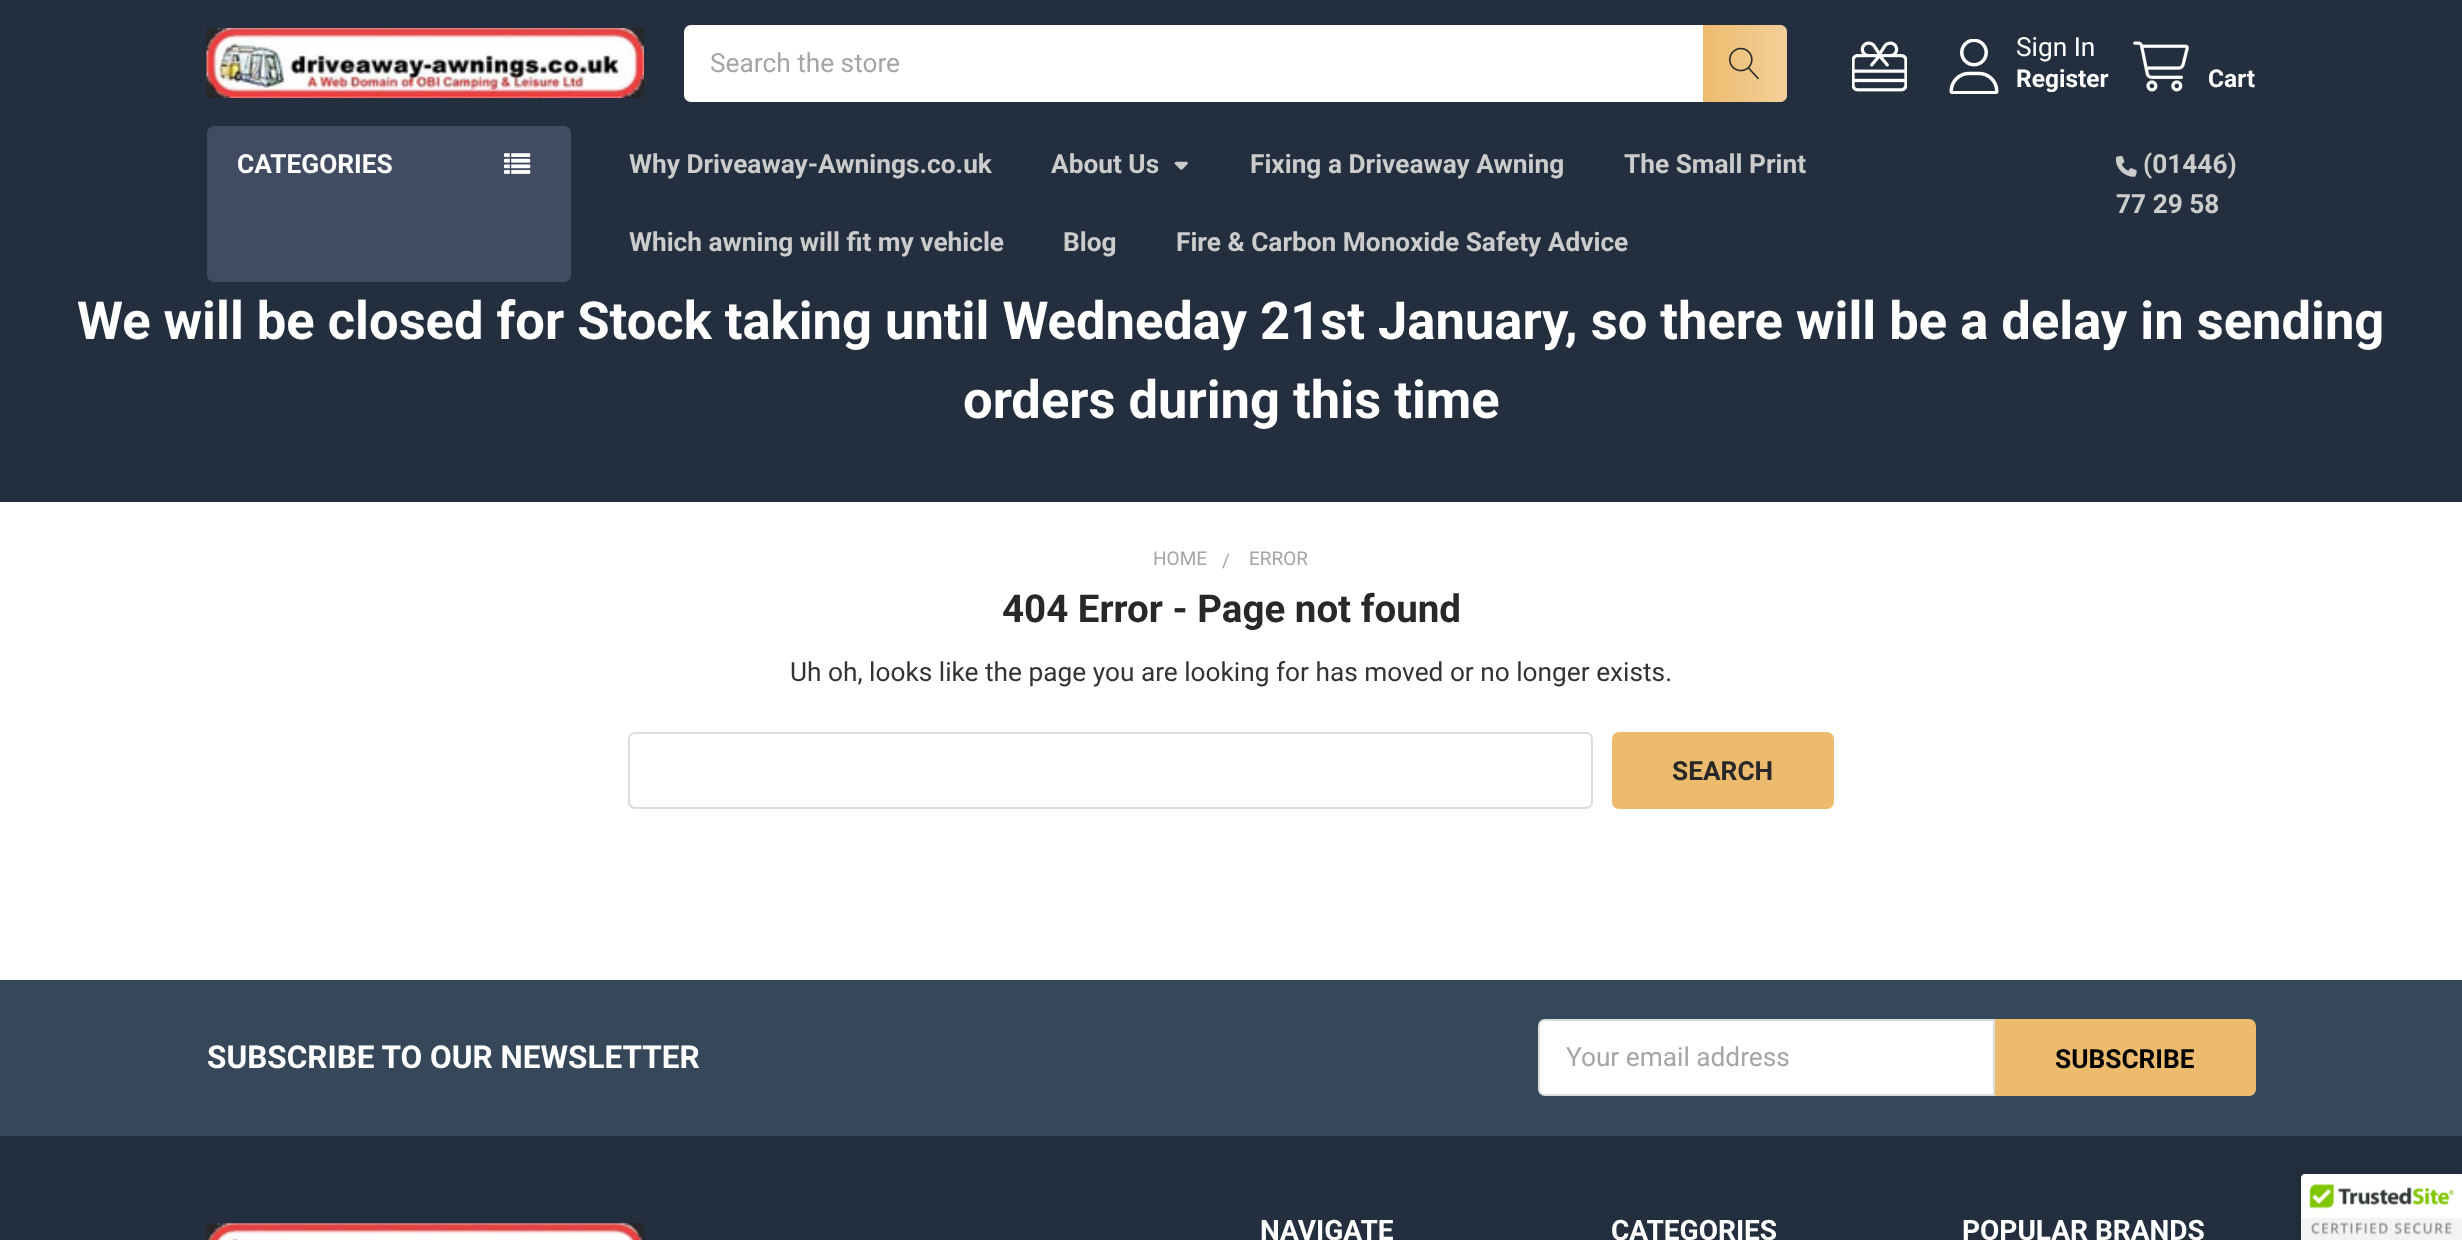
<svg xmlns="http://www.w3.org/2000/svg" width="2462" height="1240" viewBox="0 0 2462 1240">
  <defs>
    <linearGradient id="g1" gradientUnits="userSpaceOnUse" x1="1703" y1="63" x2="1787" y2="63"><stop offset="0" stop-color="#edbb6e"/><stop offset="1" stop-color="#edbb6e" stop-opacity="0.7"/></linearGradient>
  </defs>
  <rect width="100%" height="100%" fill="#fff"/>
  <path d="M0 0h2462v502H0z" fill="#232f3e"/>
  <image x="206" y="28" width="438" height="70" href="img/1.png"/>
  <rect x="684" y="25" width="1103" height="77" rx="7" fill="#fff"/>
  <path d="M1703 25H1780C1784 25 1787 28 1787 32V95C1787 99 1784 102 1780 102H1703Z" fill="url(#g1)"/>
  <image x="1729" y="47" width="30" height="33" href="img/2.png"/>
  <image x="1852" y="41" width="55" height="51" href="img/3.png"/>
  <image x="1949" y="39" width="50" height="55" href="img/4.png"/>
  <image x="2133" y="41" width="56" height="51" href="img/5.png"/>
  <rect x="207" y="126" width="364" height="156" rx="7" fill="#414c62"/>
  <image x="504" y="153" width="27" height="21" href="img/6.png"/>
  <image x="1174" y="161" width="14" height="9" href="img/7.png"/>
  <image x="2116" y="156" width="21" height="21" href="img/8.png"/>
  <rect x="629" y="733" width="963" height="75" rx="6" fill="none" stroke="#dcdcdc" stroke-width="2"/>
  <rect x="1613" y="733" width="220" height="75" rx="6" fill="#edbb6e" stroke="#edbb6e" stroke-width="2"/>
  <path d="M0 1136h2462v104H0z" fill="#232f3e"/>
  <path d="M0 980h2462v156H0z" fill="#37475a"/>
  <path d="M1545 1020H1994V1095H1545C1541.5 1095 1539 1092.5 1539 1089V1026C1539 1022.5 1541.5 1020 1545 1020Z" fill="#fff" stroke="#dcdcdc" stroke-width="2"/>
  <path d="M1996 1020H2249C2252.5 1020 2255 1022.5 2255 1026V1089C2255 1092.5 2252.5 1095 2249 1095H1996Z" fill="#edbb6e" stroke="#edbb6e" stroke-width="2"/>
  <image x="206" y="1223" width="438" height="17" href="img/9.png"/>
  <rect x="2301" y="1174" width="161" height="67" rx="4" fill="#00000033" filter="blur(4.5px)"/>
  <path d="M2305 1174H2462V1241H2301V1178C2301 1176 2303 1174 2305 1174Z" fill="#fff"/>
  <image x="2301" y="1174" width="161" height="66" href="img/10.png"/>
  <text x="710" y="72" font-family="Roboto" font-size="26.25" fill="#a5a5a5">Search the store</text>
  <text x="2016" y="56" font-family="Roboto" font-size="26.25" fill="#fff">Sign In</text>
  <g font-family="Roboto" font-size="24.5" font-weight="bold" fill="#fff">
    <text x="2016" y="87">Register</text>
    <text x="2208" y="87">Cart</text>
  </g>
  <text x="237" y="173" font-family="Roboto" font-size="26.25" font-weight="bold" fill="#fff">CATEGORIES</text>
  <g font-family="Roboto" font-size="26.25" font-weight="bold" fill="#ccc">
    <text x="629" y="173">Why Driveaway-Awnings.co.uk</text>
    <text x="1051" y="173">About Us</text>
    <text x="1250" y="173">Fixing a Driveaway Awning</text>
    <text x="1624" y="173">The Small Print</text>
    <text x="629" y="251">Which awning will fit my vehicle</text>
    <text x="1063" y="251">Blog</text>
    <text x="1176" y="251">Fire &amp; Carbon Monoxide Safety Advice</text>
    <text x="2143" y="173">(01446)</text>
    <text x="2116" y="213">77 29 58</text>
  </g>
  <g font-family="Roboto" font-size="52.5" font-weight="bold" fill="#fff">
    <text x="77" y="339">We will be closed for Stock taking until Wedneday 21st January, so there will be a delay in sending</text>
    <text x="963" y="418">orders during this time</text>
  </g>
  <g font-family="Roboto" font-size="19" fill="#a5a5a5">
    <text x="1153" y="565">HOME</text>
    <text x="1222" y="567">/</text>
    <text x="1249" y="565">ERROR</text>
  </g>
  <text x="1002" y="622" font-family="Roboto" font-size="38.5" font-weight="bold" fill="#282828">404 Error - Page not found</text>
  <text x="790" y="681" font-family="Roboto" font-size="26.25" fill="#333">Uh oh, looks like the page you are looking for has moved or no longer exists.</text>
  <text x="1672" y="780" font-family="Roboto" font-size="26.25" font-weight="bold" fill="#282828">SEARCH</text>
  <text x="207" y="1068" font-family="Roboto" font-size="31.5" font-weight="bold" fill="#fff">SUBSCRIBE TO OUR NEWSLETTER</text>
  <text x="1566" y="1066" font-family="Roboto" font-size="26.25" fill="#a5a5a5">Your email address</text>
  <text x="2055" y="1068" font-family="Roboto" font-size="26.25" font-weight="bold" fill="#000">SUBSCRIBE</text>
  <g font-family="Roboto" font-size="28" font-weight="bold" fill="#fff">
    <text x="1260" y="1240">NAVIGATE</text>
    <text x="1611" y="1240">CATEGORIES</text>
    <text x="1962" y="1240">POPULAR BRANDS</text>
  </g>
</svg>
